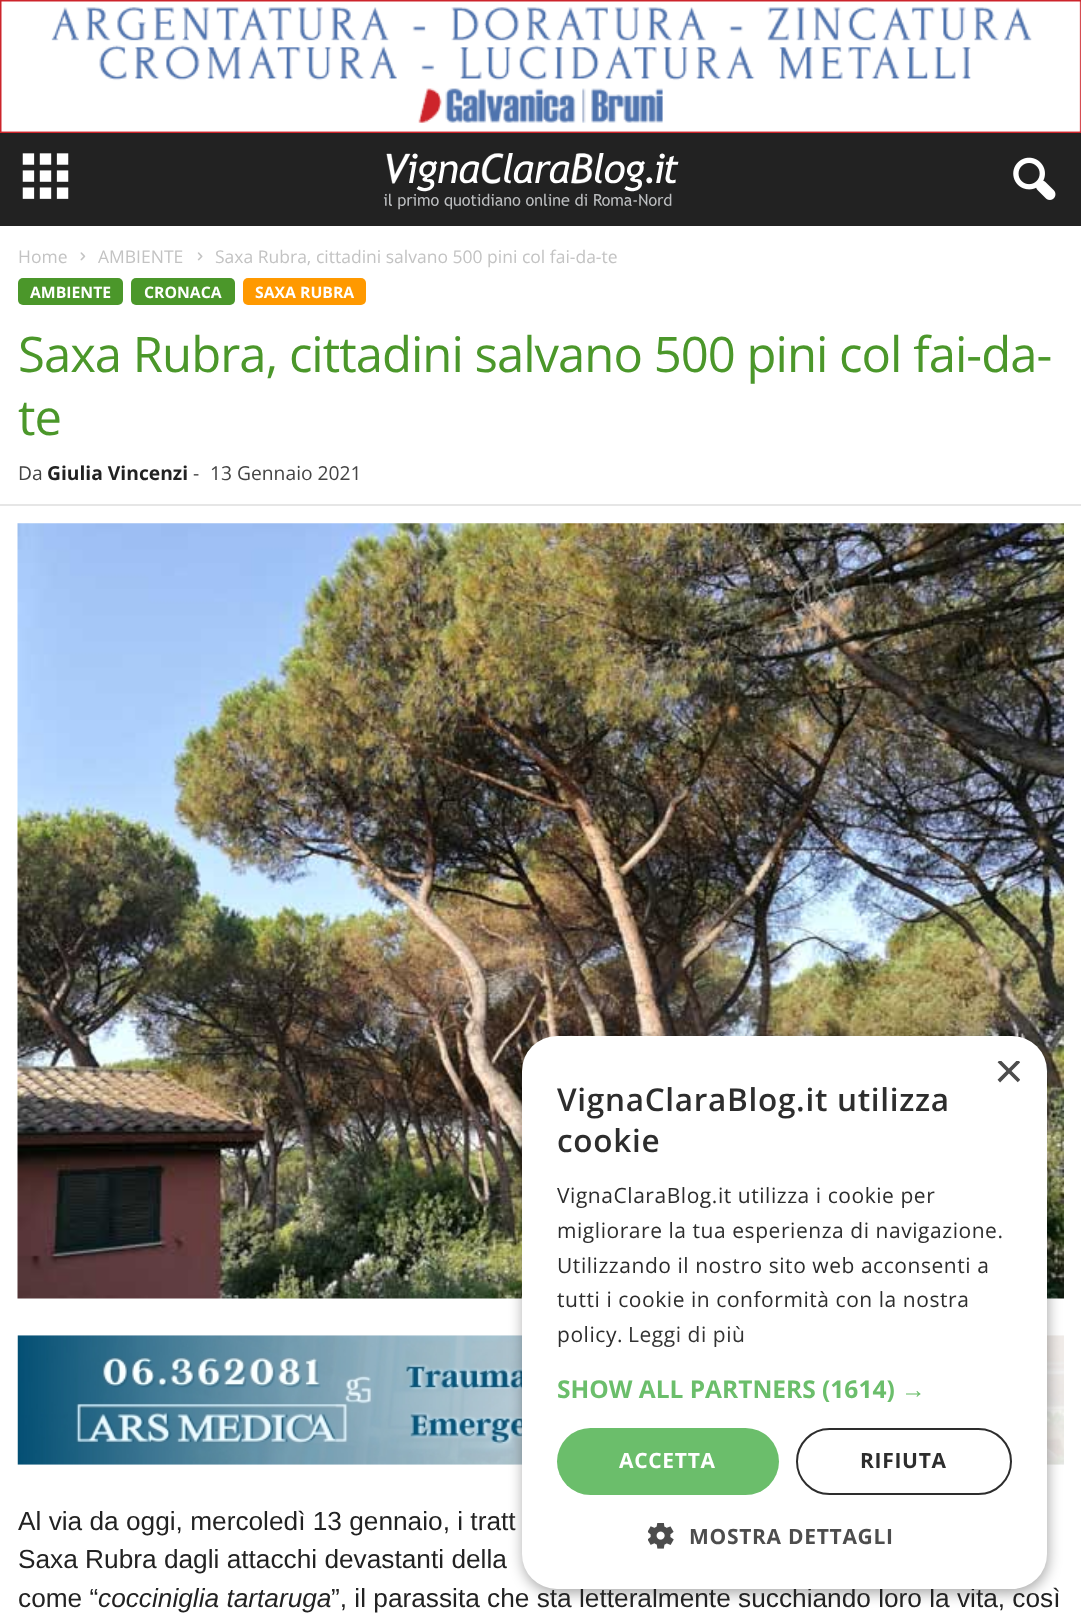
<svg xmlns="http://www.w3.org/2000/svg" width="1081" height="1624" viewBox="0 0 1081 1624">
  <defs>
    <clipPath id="clip1"><path d="M994 1061h26v26H994z"/></clipPath>
  </defs>
  <rect width="100%" height="100%" fill="#fff"/>
  <image x="0" y="0" width="1081" height="133" href="img/1.png"/>
  <path d="M0 133h1081v93H0z" fill="#222"/>
  <image x="22" y="153" width="47" height="46" href="img/2.png"/>
  <image x="383" y="153" width="296" height="57" href="img/3.png"/>
  <image x="1013" y="157" width="43" height="43" href="img/4.png"/>
  <image x="80" y="252" width="6" height="9" href="img/5.png"/>
  <image x="197" y="252" width="6" height="9" href="img/6.png"/>
  <rect x="18" y="278" width="105" height="27" rx="5" fill="#4b972a"/>
  <rect x="131" y="278" width="104" height="27" rx="5" fill="#4b972a"/>
  <rect x="243" y="278" width="123" height="27" rx="5" fill="#f90"/>
  <path d="M0 504h1081v2H0z" fill="#e6e6e6"/>
  <image x="17" y="523" width="1047" height="776" href="img/7.png"/>
  <image x="17" y="1335" width="1047" height="130" href="img/8.png"/>
  <rect x="523" y="1040" width="525" height="553" rx="35" fill="#00000059" filter="blur(7px)"/>
  <g font-family="Open Sans" font-size="17.5" fill="#c3c3c3">
    <text x="18" y="263">Home</text>
    <text x="98" y="263">AMBIENTE</text>
    <text x="215" y="263">Saxa Rubra, cittadini salvano 500 pini col fai-da-te</text>
  </g>
  <g font-family="Open Sans" font-size="15.75" font-weight="bold" fill="#fff">
    <text x="30" y="298">AMBIENTE</text>
    <text x="144" y="298">CRONACA</text>
    <text x="255" y="298">SAXA RUBRA</text>
  </g>
  <g font-family="Open Sans" font-size="49" letter-spacing="-0.98" fill="#4b972a">
    <text x="18" y="372">Saxa Rubra, cittadini salvano 500 pini col fai-da-</text>
    <text x="18" y="435">te</text>
  </g>
  <text x="18" y="480" font-family="Open Sans" font-size="19.25" fill="#444">Da</text>
  <text x="47" y="480" font-family="Open Sans" font-size="19.25" font-weight="bold" fill="#222">Giulia Vincenzi</text>
  <g font-family="Open Sans" font-size="19.25" fill="#444">
    <text x="193" y="480">-</text>
    <text x="210" y="480">13 Gennaio 2021</text>
  </g>
  <g font-family="Liberation Sans" font-size="26.25" fill="#222">
    <text x="18" y="1530">Al via da oggi, mercoledì 13 gennaio, i tratt</text>
    <text x="18" y="1568">Saxa Rubra dagli attacchi devastanti della</text>
    <text x="18" y="1607">come “</text>
  </g>
  <text x="98" y="1607" font-family="Liberation Sans" font-size="26.25" font-style="italic" fill="#222">cocciniglia tartaruga</text>
  <text x="331" y="1607" font-family="Liberation Sans" font-size="26.25" fill="#222">”, il parassita che sta letteralmente succhiando loro la vita, così</text>
  <rect x="522" y="1036" width="525" height="553" rx="35" fill="#fff"/>
  <g clip-path="url(#clip1)">
    <text x="994" y="1088" font-family="Liberation Sans" font-size="51" fill="#4d4d4d">×</text>
  </g>
  <g font-family="Open Sans" font-size="31.5" font-weight="600" letter-spacing="0.7" fill="#2d2d2d">
    <text x="557" y="1111">VignaClaraBlog.it utilizza</text>
    <text x="557" y="1152">cookie</text>
  </g>
  <g font-family="Open Sans" font-size="21" letter-spacing="0.55" fill="#2d2d2d">
    <text x="557" y="1203">VignaClaraBlog.it utilizza i cookie per</text>
    <text x="557" y="1238">migliorare la tua esperienza di navigazione.</text>
    <text x="557" y="1273">Utilizzando il nostro sito web acconsenti a</text>
    <text x="557" y="1307">tutti i cookie in conformità con la nostra</text>
    <text x="557" y="1342">policy.</text>
  </g>
  <text x="628" y="1342" font-family="Open Sans" font-size="21" letter-spacing="0.55" fill="#333">Leggi di più</text>
  <text x="557" y="1398" font-family="Open Sans" font-size="24.5" font-weight="bold" fill="#6bbe6b">SHOW ALL PARTNERS (1614)</text>
  <text x="901" y="1398" font-family="Liberation Sans" font-size="24.5" font-weight="bold" fill="#6bbe6b">→</text>
  <rect x="557" y="1428" width="222" height="67" rx="33.5" fill="#6bbe6b"/>
  <text x="619" y="1468" font-family="Open Sans" font-size="21" font-weight="bold" letter-spacing="0.7" fill="#fff">ACCETTA</text>
  <rect x="797" y="1429" width="214" height="65" rx="32.5" fill="none" stroke="#2d2d2d" stroke-width="2"/>
  <text x="860" y="1468" font-family="Open Sans" font-size="21" font-weight="bold" letter-spacing="0.7" fill="#2d2d2d">RIFIUTA</text>
  <image x="648" y="1523" width="26" height="26" href="img/9.png"/>
  <text x="689" y="1544" font-family="Open Sans" font-size="21" font-weight="bold" letter-spacing="0.7" fill="#4d4d4d">MOSTRA DETTAGLI</text>
</svg>
